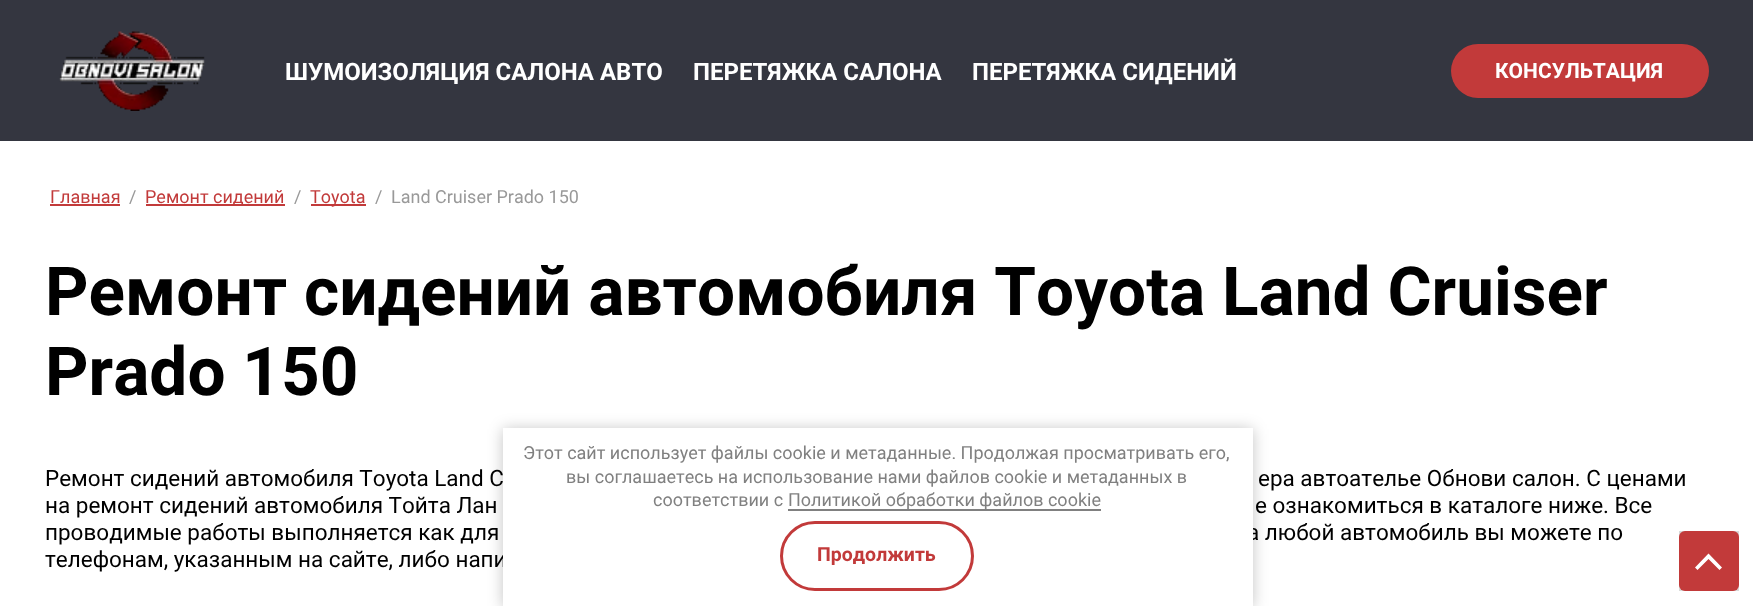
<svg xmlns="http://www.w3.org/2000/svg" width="1753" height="606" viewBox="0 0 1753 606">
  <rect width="100%" height="100%" fill="#fff"/>
  <path d="M0 0h1753v141H0z" fill="#343640"/>
  <image x="59" y="31" width="146" height="80" href="img/1.png"/>
  <rect x="1451" y="44" width="258" height="54" rx="27" fill="#c23a3a"/>
  <path d="M50 204h70v2H50z" fill="#c23a3a"/>
  <path d="M146 204h139v2H146z" fill="#c23a3a"/>
  <path d="M311 204h55v2H311z" fill="#c23a3a"/>
  <path d="M503 429h750v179H503z" fill="#0000003b" filter="blur(7.5px)"/>
  <path d="M1679 531h60v60H1679z" fill="#d9d9d9"/>
  <rect x="1679" y="531" width="60" height="60" rx="6" fill="#c23a3a"/>
  <path d="M1695 567.5L1708.5 553.5L1722 567.5L1719.5 570L1708.5 559L1697.5 570Z" fill="#fff" fill-rule="evenodd"/>
  <g font-family="Roboto" font-size="24" font-weight="bold" fill="#fff">
    <text x="285" y="80">ШУМОИЗОЛЯЦИЯ САЛОНА АВТО</text>
    <text x="693" y="80">ПЕРЕТЯЖКА САЛОНА</text>
    <text x="972" y="80">ПЕРЕТЯЖКА СИДЕНИЙ</text>
  </g>
  <text x="1495" y="78" font-family="Roboto" font-size="21" font-weight="bold" fill="#fff">КОНСУЛЬТАЦИЯ</text>
  <text x="50" y="203" font-family="Roboto" font-size="18" fill="#c23a3a">Главная</text>
  <text x="129" y="203" font-family="Roboto" font-size="18" fill="#999">/</text>
  <text x="145" y="203" font-family="Roboto" font-size="18" fill="#c23a3a">Ремонт сидений</text>
  <text x="294" y="203" font-family="Roboto" font-size="18" fill="#999">/</text>
  <text x="310" y="203" font-family="Roboto" font-size="18" fill="#c23a3a">Toyota</text>
  <g font-family="Roboto" font-size="18" fill="#999">
    <text x="375" y="203">/</text>
    <text x="391" y="203">Land Cruiser Prado 150</text>
  </g>
  <g font-family="Roboto" font-size="67.5" font-weight="bold" fill="#000">
    <text x="45" y="315">Ремонт сидений автомобиля Toyota Land Cruiser</text>
    <text x="45" y="395">Prado 150</text>
  </g>
  <g font-family="Roboto" font-size="22.5" fill="#000">
    <text x="45" y="486">Ремонт сидений автомобиля Toyota Land C</text>
    <text x="1258" y="486">ера автоателье Обнови салон. С ценами</text>
    <text x="45" y="513">на ремонт сидений автомобиля Тойта Лан</text>
    <text x="1255" y="513">е ознакомиться в каталоге ниже. Все</text>
    <text x="45" y="540">проводимые работы выполняется как для</text>
    <text x="1247" y="540">а любой автомобиль вы можете по</text>
    <text x="45" y="567">телефонам, указанным на сайте, либо напи</text>
  </g>
  <path d="M503 428h750v178H503z" fill="#fff"/>
  <g font-family="Roboto" font-size="18" fill="#808080">
    <text x="523" y="459">Этот сайт использует файлы cookie и метаданные. Продолжая просматривать его,</text>
    <text x="566" y="483">вы соглашаетесь на использование нами файлов cookie и метаданных в</text>
    <text x="653" y="506">соответствии с</text>
  </g>
  <path d="M788 509h313v2H788z" fill="#808080"/>
  <text x="788" y="506" font-family="Roboto" font-size="18" fill="#808080">Политикой обработки файлов cookie</text>
  <rect x="781.5" y="522.5" width="191" height="67" rx="33.5" fill="none" stroke="#c23a3a" stroke-width="3"/>
  <text x="817" y="561" font-family="Roboto" font-size="19.5" font-weight="bold" fill="#c23a3a">Продолжить</text>
</svg>
